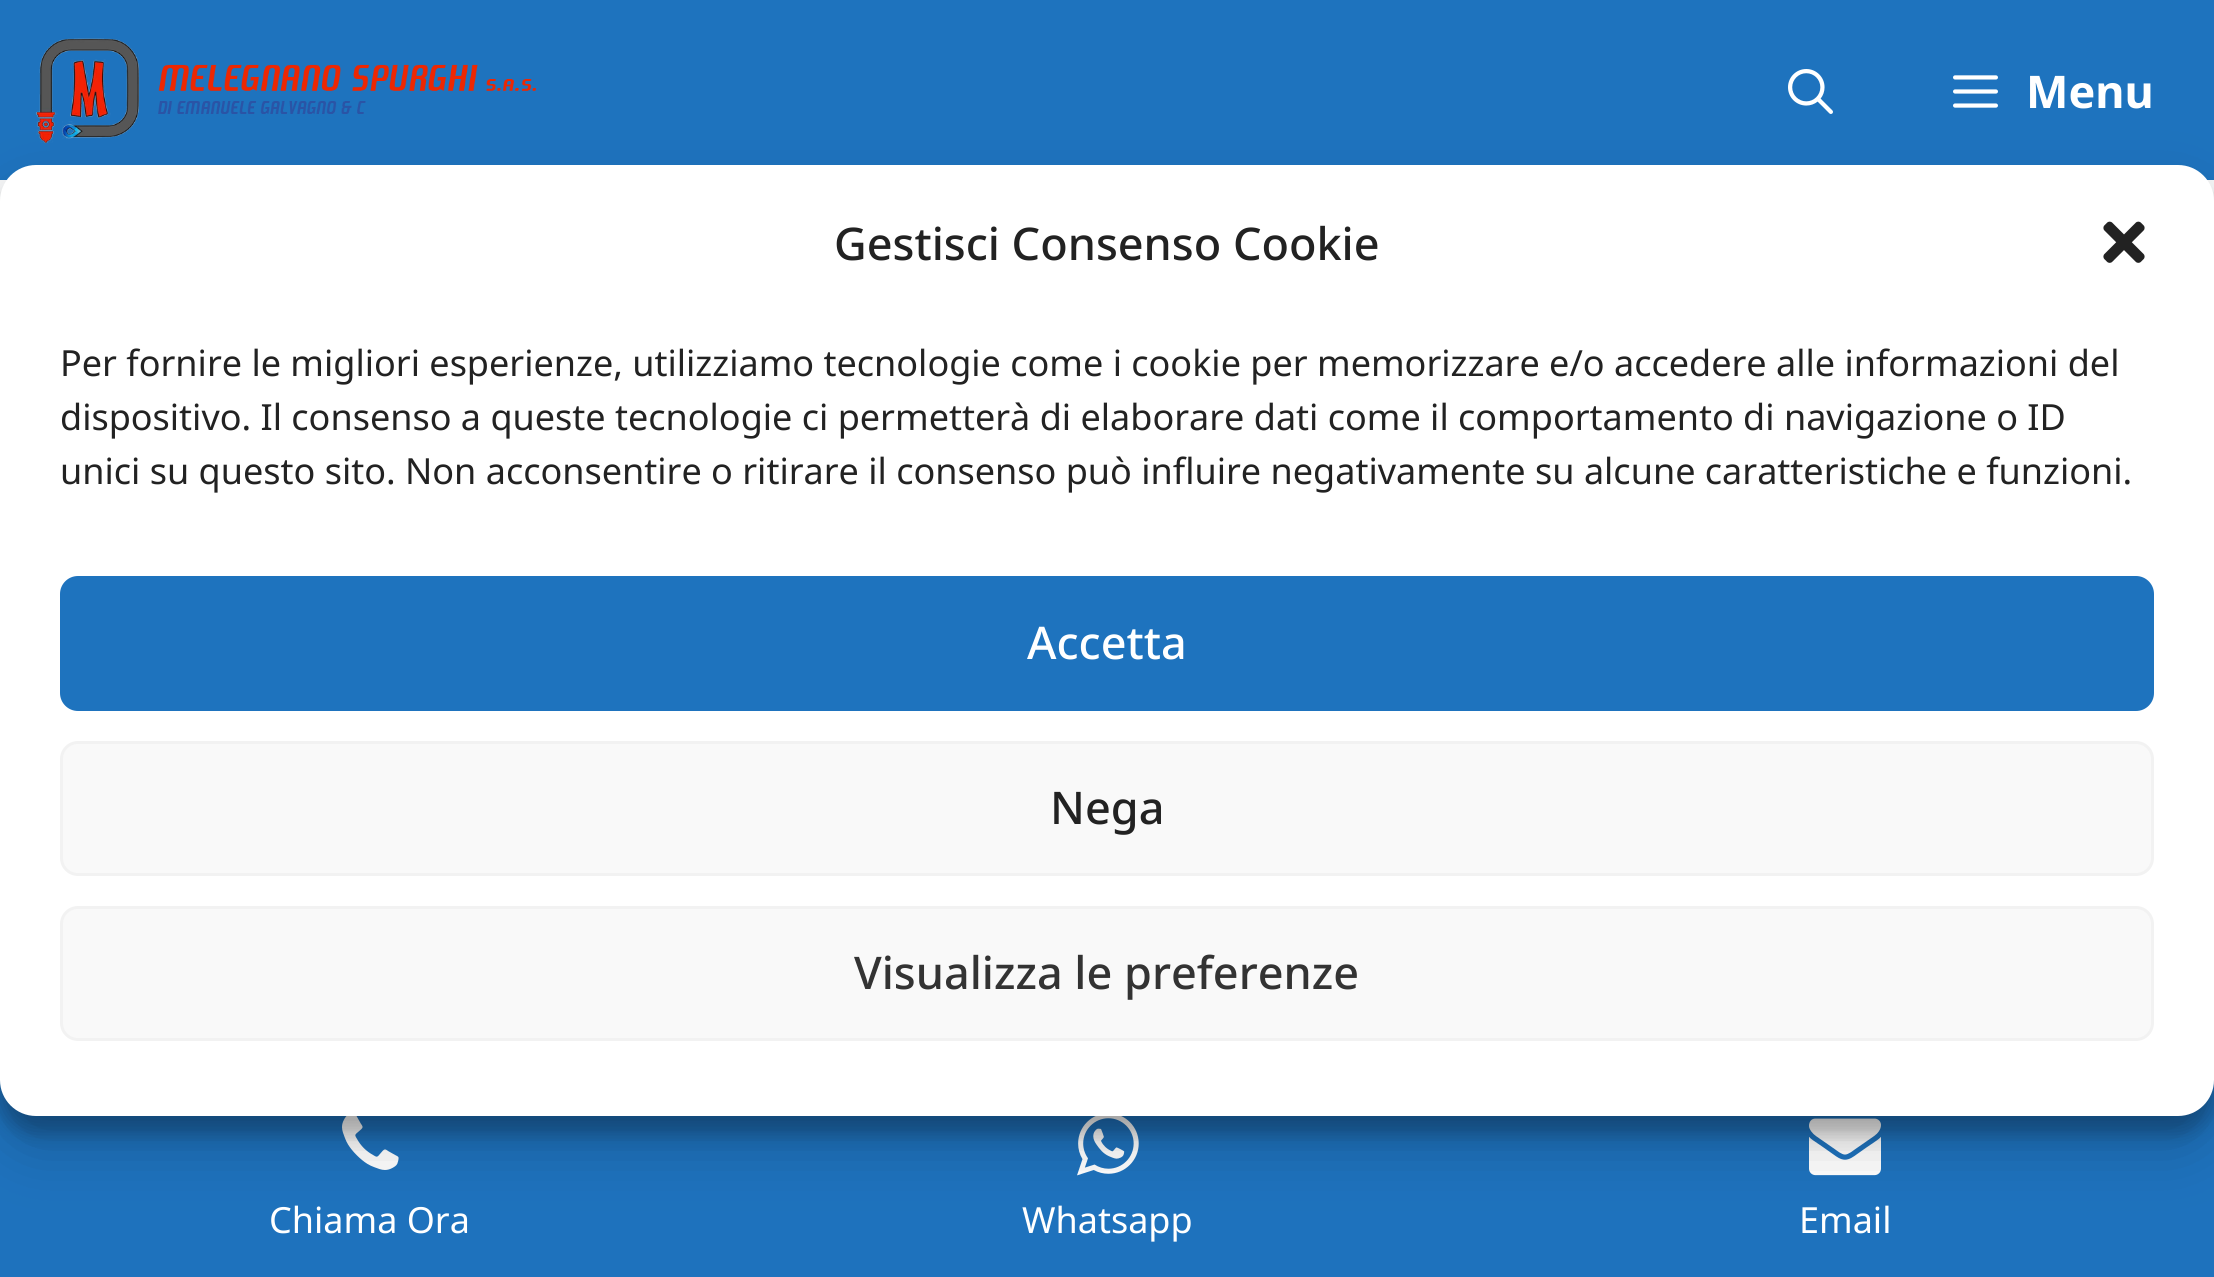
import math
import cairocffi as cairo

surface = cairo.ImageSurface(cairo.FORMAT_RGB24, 2214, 1277)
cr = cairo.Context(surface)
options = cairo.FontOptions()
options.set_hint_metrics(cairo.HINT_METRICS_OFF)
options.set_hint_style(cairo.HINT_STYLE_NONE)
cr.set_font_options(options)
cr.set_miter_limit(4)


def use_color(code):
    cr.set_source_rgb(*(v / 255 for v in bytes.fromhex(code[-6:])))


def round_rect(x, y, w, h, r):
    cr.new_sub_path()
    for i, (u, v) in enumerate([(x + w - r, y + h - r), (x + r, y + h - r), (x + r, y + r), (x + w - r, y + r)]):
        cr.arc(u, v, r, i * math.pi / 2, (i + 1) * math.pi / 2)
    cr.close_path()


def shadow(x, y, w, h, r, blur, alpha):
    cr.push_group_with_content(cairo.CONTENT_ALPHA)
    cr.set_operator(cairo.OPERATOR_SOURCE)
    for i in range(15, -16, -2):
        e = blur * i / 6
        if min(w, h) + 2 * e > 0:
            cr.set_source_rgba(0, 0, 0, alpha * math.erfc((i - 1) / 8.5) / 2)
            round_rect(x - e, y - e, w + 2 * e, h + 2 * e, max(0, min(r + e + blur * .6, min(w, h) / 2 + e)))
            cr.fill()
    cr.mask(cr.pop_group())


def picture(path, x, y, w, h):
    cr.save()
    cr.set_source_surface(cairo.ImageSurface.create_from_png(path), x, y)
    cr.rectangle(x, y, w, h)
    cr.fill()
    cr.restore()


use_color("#f7f8f9")
cr.paint()
use_color("#1e73be")
cr.rectangle(0, 0, 2214, 180)
cr.fill()
picture("img1.png", 36, 38, 501, 106)
picture("img2.png", 1788, 69, 45, 45)
picture("img3.png", 1953, 75, 45, 33)
cr.select_font_face("Noto Sans", cairo.FONT_SLANT_NORMAL, cairo.FONT_WEIGHT_BOLD)
cr.set_font_size(45)
use_color("#ffffff")
cr.move_to(2026, 108)
cr.show_text("Menu")
use_color("#1e72bd")
cr.rectangle(0, 1080, 2214, 197)
cr.fill()
picture("img5.png", 342, 1116, 57, 54)
picture("img6.png", 1077, 1116, 62, 60)
picture("img7.png", 1809, 1118, 72, 58)
use_color("#000000")
shadow(0, 183, 2214, 951, 36, 9, 0.23)
shadow(0, 195, 2214, 951, 36, 30, 0.19)
use_color("#ffffff")
round_rect(0, 165, 2214, 951, 36)
cr.fill()
cr.select_font_face("Noto Sans Medium")
use_color("#222222")
cr.move_to(834, 260)
cr.show_text("Gestisci Consenso Cookie")
picture("img4.png", 2103, 221, 42, 42)
cr.select_font_face("Noto Sans")
cr.set_font_size(36)
cr.move_to(60, 376)
cr.show_text("Per fornire le migliori esperienze, utilizziamo tecnologie come i cookie per memorizzare e/o accedere alle informazioni del")
cr.move_to(60, 430)
cr.show_text("dispositivo. Il consenso a queste tecnologie ci permetterà di elaborare dati come il comportamento di navigazione o ID")
cr.move_to(60, 484)
cr.show_text("unici su questo sito. Non acconsentire o ritirare il consenso può influire negativamente su alcune caratteristiche e funzioni.")
use_color("#1e73be")
round_rect(61.5, 577.5, 2091, 132, 16.5)
cr.fill_preserve()
cr.set_line_width(3)
cr.stroke()
cr.select_font_face("Noto Sans Medium")
cr.set_font_size(45)
use_color("#ffffff")
cr.move_to(1027, 659)
cr.show_text("Accetta")
use_color("#f9f9f9")
round_rect(61.5, 742.5, 2091, 132, 16.5)
cr.fill_preserve()
use_color("#f2f2f2")
cr.stroke()
use_color("#222222")
cr.move_to(1050, 824)
cr.show_text("Nega")
use_color("#f9f9f9")
round_rect(61.5, 907.5, 2091, 132, 16.5)
cr.fill_preserve()
use_color("#f2f2f2")
cr.stroke()
use_color("#333333")
cr.move_to(854, 989)
cr.show_text("Visualizza le preferenze")
cr.select_font_face("Noto Sans")
cr.set_font_size(36)
use_color("#ffffff")
cr.move_to(269, 1233)
cr.show_text("Chiama Ora")
cr.move_to(1022, 1233)
cr.show_text("Whatsapp")
cr.move_to(1799, 1233)
cr.show_text("Email")
surface.write_to_png("result.png")
